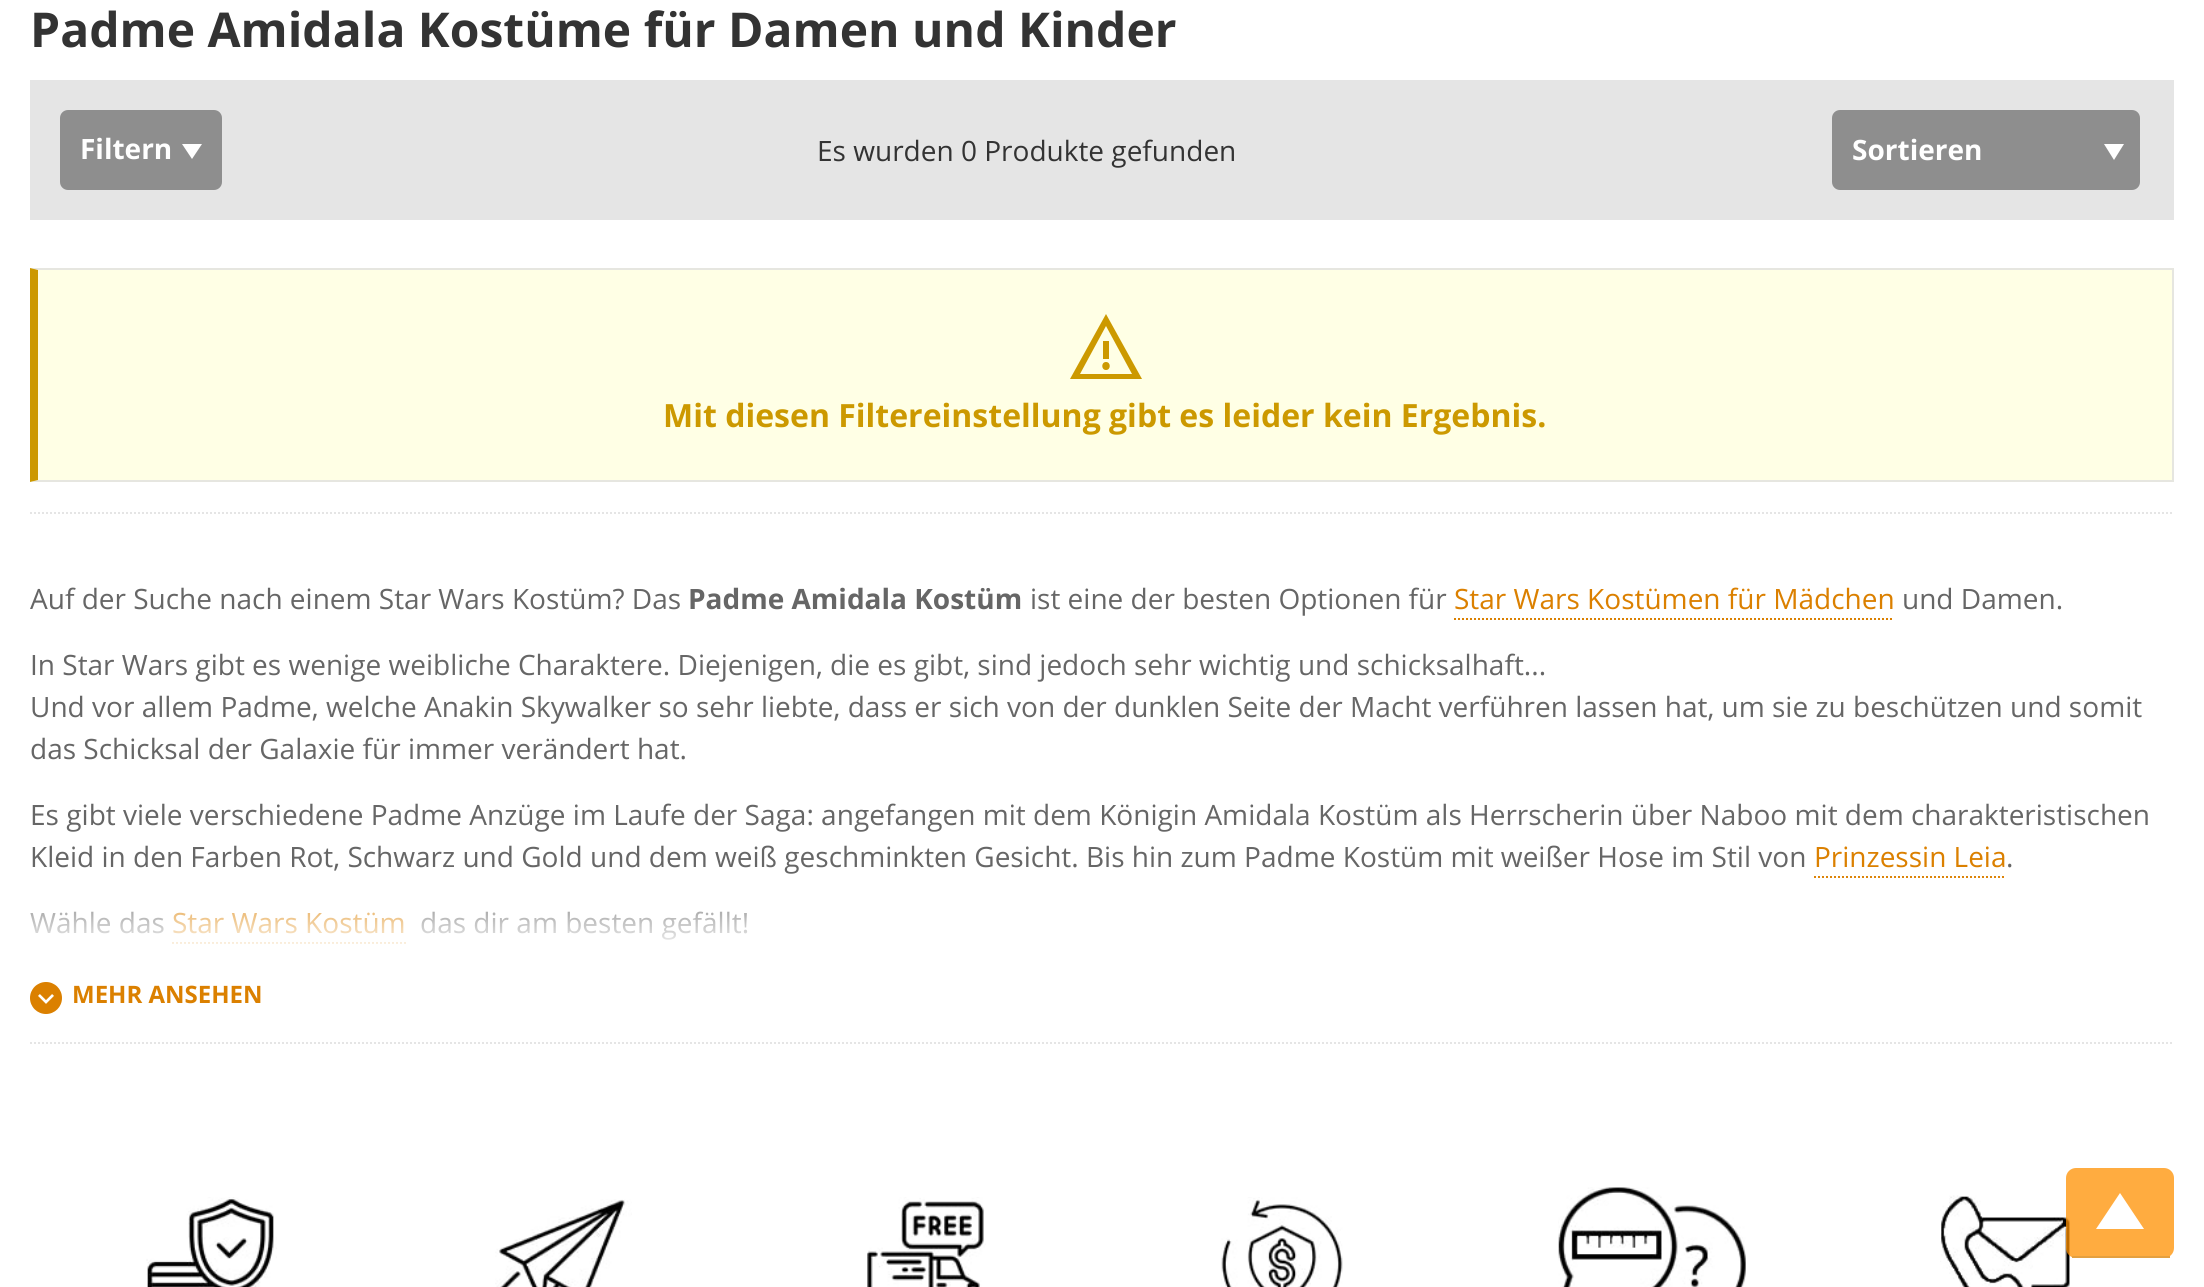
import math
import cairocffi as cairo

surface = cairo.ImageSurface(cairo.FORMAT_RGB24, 2204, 1287)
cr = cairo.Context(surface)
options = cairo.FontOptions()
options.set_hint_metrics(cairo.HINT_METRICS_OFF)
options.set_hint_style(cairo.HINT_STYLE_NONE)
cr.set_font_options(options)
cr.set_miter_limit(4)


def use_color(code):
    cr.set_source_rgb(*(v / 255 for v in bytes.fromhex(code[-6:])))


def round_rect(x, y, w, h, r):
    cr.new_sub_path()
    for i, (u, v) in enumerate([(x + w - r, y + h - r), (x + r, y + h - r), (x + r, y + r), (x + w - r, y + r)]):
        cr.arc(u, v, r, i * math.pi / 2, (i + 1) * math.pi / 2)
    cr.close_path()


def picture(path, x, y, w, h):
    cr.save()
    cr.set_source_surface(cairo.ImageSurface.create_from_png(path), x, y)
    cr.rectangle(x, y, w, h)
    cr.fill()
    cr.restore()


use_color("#ffffff")
cr.paint()
cr.select_font_face("Open Sans", cairo.FONT_SLANT_NORMAL, cairo.FONT_WEIGHT_BOLD)
cr.set_font_size(48)
use_color("#333333")
cr.move_to(30, 47)
cr.show_text("Padme Amidala Kostüme für Damen und Kinder")
use_color("#e5e5e5")
cr.rectangle(30, 80, 2144, 140)
cr.fill()
use_color("#8e8e8e")
round_rect(60, 110, 162, 80, 8)
cr.fill()
cr.set_font_size(28)
use_color("#ffffff")
cr.move_to(80, 159)
cr.show_text("Filtern")
cr.new_path()
cr.move_to(192, 159)
cr.line_to(182, 144)
cr.line_to(202, 144)
cr.close_path()
cr.fill()
cr.select_font_face("Open Sans")
use_color("#333333")
cr.move_to(817, 161)
cr.show_text("Es wurden 0 Produkte gefunden")
use_color("#8e8e8e")
round_rect(1834, 112, 304, 76, 6)
cr.fill_preserve()
cr.set_line_width(4)
cr.stroke()
cr.select_font_face("Open Sans", cairo.FONT_SLANT_NORMAL, cairo.FONT_WEIGHT_BOLD)
use_color("#ffffff")
cr.move_to(1852, 160)
cr.show_text("Sortieren")
cr.new_path()
cr.move_to(2104, 144)
cr.line_to(2124, 144)
cr.line_to(2114, 160)
cr.close_path()
cr.fill()
use_color("#ffffe5")
cr.rectangle(38, 270, 2134, 210)
cr.fill()
use_color("#e6e6e0")
cr.new_path()
cr.move_to(30, 268)
cr.line_to(2174, 268)
cr.line_to(2172, 270)
cr.line_to(38, 270)
cr.close_path()
cr.fill()
cr.rectangle(2172, 268, 2, 214)
cr.fill()
cr.new_path()
cr.move_to(2174, 482)
cr.line_to(30, 482)
cr.line_to(38, 480)
cr.line_to(2172, 480)
cr.close_path()
cr.fill()
use_color("#cc9900")
cr.new_path()
cr.move_to(30, 482)
cr.line_to(30, 268)
cr.line_to(38, 270)
cr.line_to(38, 480)
cr.close_path()
cr.fill()
cr.new_path()
cr.move_to(1106, 326)
cr.line_to(1132, 374)
cr.line_to(1080, 374)
cr.close_path()
cr.move_to(1106, 314)
cr.line_to(1070, 379)
cr.line_to(1142, 379)
cr.close_path()
cr.move_to(1103, 341)
cr.line_to(1109, 341)
cr.line_to(1109, 359)
cr.line_to(1103, 359)
cr.close_path()
cr.move_to(1106, 370)
cr.curve_to(1101, 370, 1101, 362, 1106, 362)
cr.curve_to(1111, 362, 1111, 370, 1106, 370)
cr.close_path()
cr.fill()
cr.set_font_size(32)
cr.move_to(663, 427)
cr.show_text("Mit diesen Filtereinstellung gibt es leider kein Ergebnis.")
cr.new_path()
cr.move_to(30, 513)
cr.line_to(2174, 513)
use_color("#e5e5e5")
cr.set_line_width(2)
cr.set_dash([2, 2])
cr.stroke()
cr.select_font_face("Open Sans")
cr.set_font_size(28)
use_color("#666666")
cr.move_to(30, 609)
cr.show_text("Auf der Suche nach einem Star Wars Kostüm? Das")
cr.select_font_face("Open Sans", cairo.FONT_SLANT_NORMAL, cairo.FONT_WEIGHT_BOLD)
cr.move_to(688, 609)
cr.show_text("Padme Amidala Kostüm")
cr.select_font_face("Open Sans")
cr.move_to(1030, 609)
cr.show_text("ist eine der besten Optionen für")
use_color("#db8000")
cr.move_to(1454, 609)
cr.show_text("Star Wars Kostümen für Mädchen")
cr.new_path()
cr.move_to(1454, 619)
cr.line_to(1894, 619)
cr.stroke()
use_color("#666666")
cr.move_to(1902, 609)
cr.show_text("und Damen.")
cr.move_to(30, 675)
cr.show_text("In Star Wars gibt es wenige weibliche Charaktere. Diejenigen, die es gibt, sind jedoch sehr wichtig und schicksalhaft...")
cr.move_to(30, 717)
cr.show_text("Und vor allem Padme, welche Anakin Skywalker so sehr liebte, dass er sich von der dunklen Seite der Macht verführen lassen hat, um sie zu beschützen und somit")
cr.move_to(30, 759)
cr.show_text("das Schicksal der Galaxie für immer verändert hat.")
cr.move_to(30, 825)
cr.show_text("Es gibt viele verschiedene Padme Anzüge im Laufe der Saga: angefangen mit dem Königin Amidala Kostüm als Herrscherin über Naboo mit dem charakteristischen")
cr.move_to(30, 867)
cr.show_text("Kleid in den Farben Rot, Schwarz und Gold und dem weiß geschminkten Gesicht. Bis hin zum Padme Kostüm mit weißer Hose im Stil von")
use_color("#db8000")
cr.move_to(1814, 867)
cr.show_text("Prinzessin Leia")
cr.new_path()
cr.move_to(1814, 877)
cr.line_to(2006, 877)
cr.stroke()
use_color("#666666")
cr.move_to(2006, 867)
cr.show_text(".")
cr.move_to(30, 933)
cr.show_text("Wähle das")
use_color("#db8000")
cr.move_to(172, 933)
cr.show_text("Star Wars Kostüm")
cr.new_path()
cr.move_to(172, 943)
cr.line_to(406, 943)
cr.stroke()
use_color("#666666")
cr.move_to(420, 933)
cr.show_text("das dir am besten gefällt!")
gradient = cairo.LinearGradient(1102, 874, 1102, 954)
gradient.add_color_stop_rgba(0, 1, 1, 1, 0)
gradient.add_color_stop_rgba(1, 1, 1, 1, 1)
cr.set_source(gradient)
cr.rectangle(30, 876, 1974, 68)
cr.fill()
cr.new_path()
cr.move_to(30, 1043)
cr.line_to(2174, 1043)
use_color("#e5e5e5")
cr.stroke()
picture("img1.png", 30, 982, 32, 32)
cr.select_font_face("Open Sans", cairo.FONT_SLANT_NORMAL, cairo.FONT_WEIGHT_BOLD)
cr.set_font_size(24)
use_color("#db8000")
cr.move_to(72, 1003)
cr.show_text("MEHR ANSEHEN")
picture("img2.png", 146, 1197, 131, 90)
picture("img3.png", 495, 1199, 137, 88)
picture("img4.png", 867, 1197, 119, 90)
picture("img5.png", 1221, 1197, 122, 90)
picture("img6.png", 1558, 1187, 188, 100)
picture("img7.png", 1940, 1195, 130, 92)
cr.set_source_rgba(1, 0.565, 0, 0.75)
round_rect(2066, 1168, 108, 90, 10)
cr.fill()
use_color("#e4a040")
cr.rectangle(2072, 1256, 98, 2)
cr.fill()
use_color("#ffffff")
cr.new_path()
cr.move_to(2120, 1193)
cr.line_to(2144, 1229)
cr.line_to(2096, 1229)
cr.close_path()
cr.fill()
surface.write_to_png("result.png")
